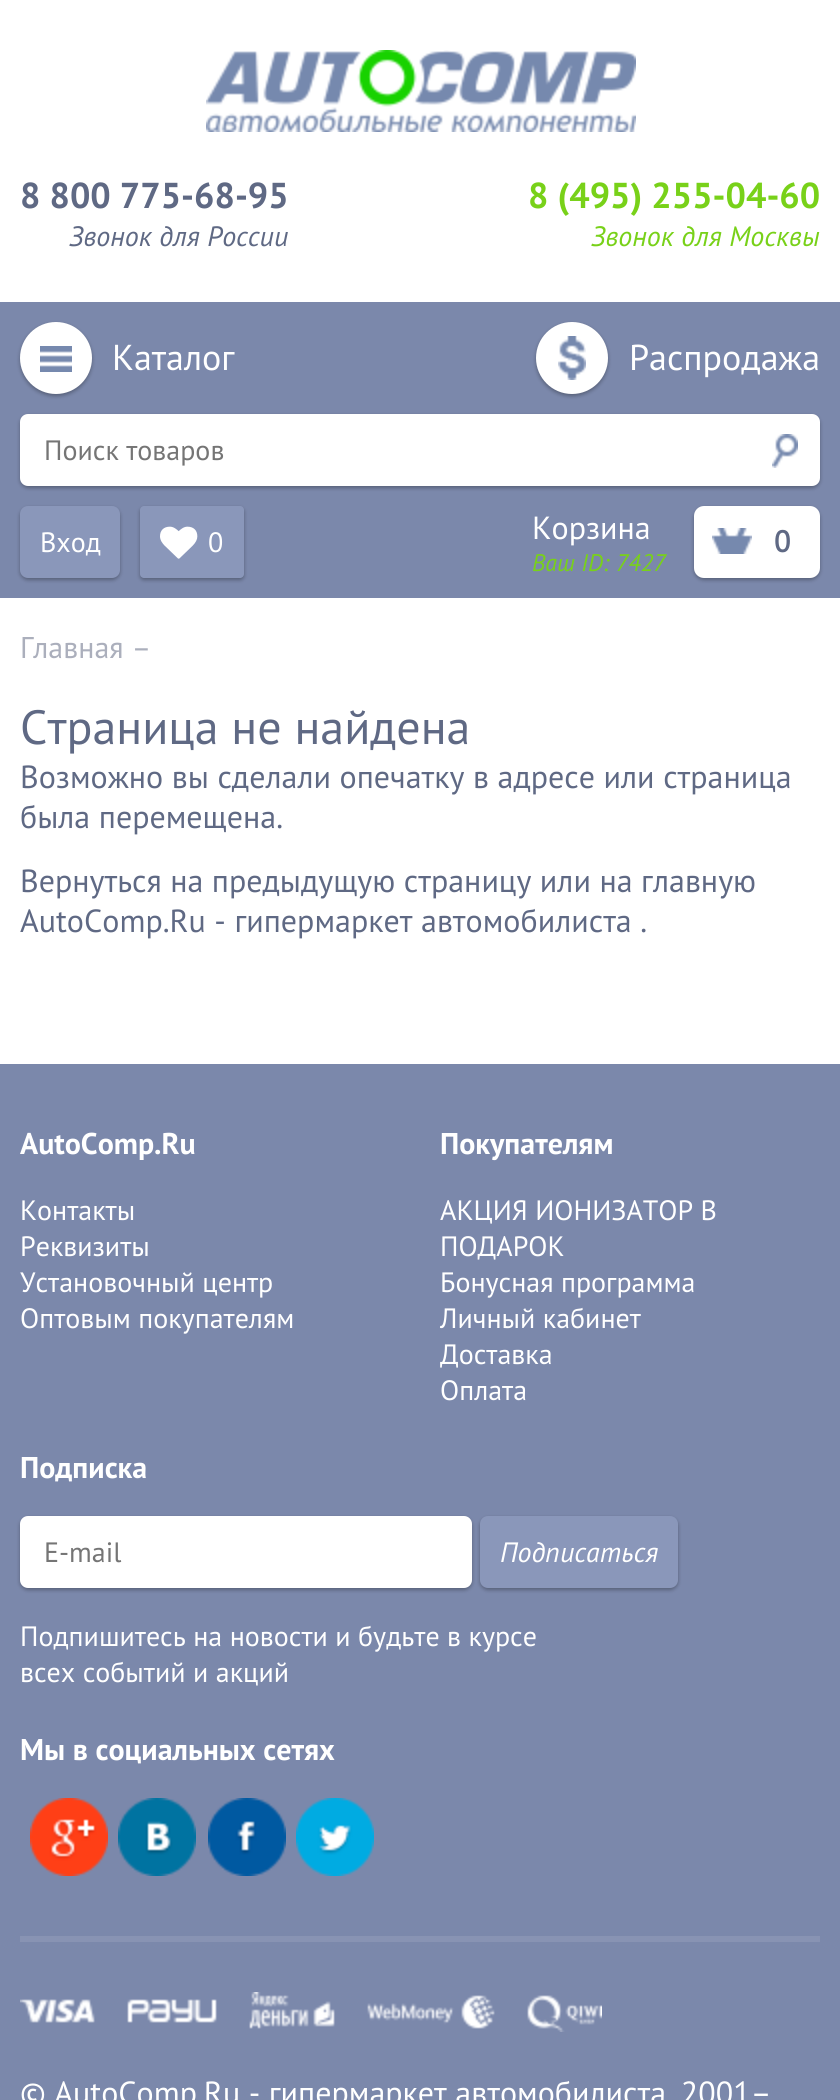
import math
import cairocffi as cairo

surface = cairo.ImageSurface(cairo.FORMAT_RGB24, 840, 2100)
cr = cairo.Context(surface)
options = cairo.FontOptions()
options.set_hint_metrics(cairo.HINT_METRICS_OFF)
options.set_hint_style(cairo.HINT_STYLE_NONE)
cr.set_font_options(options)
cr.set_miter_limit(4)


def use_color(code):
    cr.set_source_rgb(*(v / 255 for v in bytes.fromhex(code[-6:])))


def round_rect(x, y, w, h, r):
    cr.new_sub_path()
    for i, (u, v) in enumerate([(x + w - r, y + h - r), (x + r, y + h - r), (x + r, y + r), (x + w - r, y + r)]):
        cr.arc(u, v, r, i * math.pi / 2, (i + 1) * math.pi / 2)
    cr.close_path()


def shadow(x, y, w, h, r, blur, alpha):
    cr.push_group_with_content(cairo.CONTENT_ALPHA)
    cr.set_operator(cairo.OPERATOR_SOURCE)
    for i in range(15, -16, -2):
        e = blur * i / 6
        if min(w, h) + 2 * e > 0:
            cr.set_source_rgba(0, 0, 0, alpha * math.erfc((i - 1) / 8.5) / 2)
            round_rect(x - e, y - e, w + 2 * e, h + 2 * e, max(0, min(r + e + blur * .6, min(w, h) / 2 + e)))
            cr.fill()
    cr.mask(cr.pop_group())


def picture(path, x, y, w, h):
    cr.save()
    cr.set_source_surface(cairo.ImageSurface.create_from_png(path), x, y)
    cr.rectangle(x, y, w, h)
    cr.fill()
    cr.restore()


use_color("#ffffff")
cr.paint()
picture("img1.png", 206, 50, 430, 82)
cr.select_font_face("PT Sans", cairo.FONT_SLANT_NORMAL, cairo.FONT_WEIGHT_BOLD)
cr.set_font_size(36)
use_color("#5f6984")
cr.move_to(20, 208)
cr.show_text("8 800 775-68-95")
cr.select_font_face("PT Sans", cairo.FONT_SLANT_ITALIC)
cr.set_font_size(28)
cr.move_to(69, 246)
cr.show_text("Звонок для России")
cr.select_font_face("PT Sans", cairo.FONT_SLANT_NORMAL, cairo.FONT_WEIGHT_BOLD)
cr.set_font_size(36)
use_color("#78d119")
cr.move_to(528, 208)
cr.show_text("8 (495) 255-04-60")
cr.select_font_face("PT Sans", cairo.FONT_SLANT_ITALIC)
cr.set_font_size(28)
cr.move_to(591, 246)
cr.show_text("Звонок для Москвы")
use_color("#7b88ab")
cr.rectangle(0, 302, 840, 296)
cr.fill()
use_color("#000000")
shadow(20, 324, 72, 72, 36, 2, 0.3)
use_color("#ffffff")
cr.arc(56, 358, 36, 0, 2 * math.pi)
cr.fill()
picture("img2.png", 40, 346, 32, 26)
cr.select_font_face("PT Sans")
cr.set_font_size(36)
cr.move_to(112, 370)
cr.show_text("Каталог")
use_color("#000000")
shadow(536, 324, 72, 72, 36, 2, 0.3)
use_color("#ffffff")
cr.arc(572, 358, 36, 0, 2 * math.pi)
cr.fill()
picture("img3.png", 558, 336, 28, 44)
cr.move_to(629, 370)
cr.show_text("Распродажа")
use_color("#000000")
shadow(20, 416, 800, 72, 8, 2, 0.3)
use_color("#ffffff")
round_rect(20, 414, 800, 72, 8)
cr.fill()
cr.set_font_size(28)
use_color("#757575")
cr.move_to(44, 460)
cr.show_text("Поиск товаров")
picture("img4.png", 772, 434, 26, 34)
use_color("#000000")
shadow(20, 508, 100, 72, 8, 2, 0.3)
use_color("#8a97ba")
round_rect(20, 506, 100, 72, 8)
cr.fill()
use_color("#ffffff")
cr.move_to(40, 552)
cr.show_text("Вход")
use_color("#000000")
shadow(140, 508, 104, 72, 4, 2, 0.3)
use_color("#8a97ba")
round_rect(140, 506, 104, 72, 4)
cr.fill()
picture("img5.png", 160, 526, 38, 33)
use_color("#ffffff")
cr.move_to(208, 552)
cr.show_text("0")
cr.set_font_size(32)
cr.move_to(532, 539)
cr.show_text("Корзина")
cr.select_font_face("PT Sans", cairo.FONT_SLANT_ITALIC)
cr.set_font_size(24)
use_color("#78d119")
cr.move_to(532, 571)
cr.show_text("Ваш ID: 7427")
use_color("#000000")
shadow(694, 508, 126, 72, 10, 2, 0.3)
use_color("#ffffff")
round_rect(694, 506, 126, 72, 10)
cr.fill()
picture("img6.png", 712, 528, 40, 26)
cr.select_font_face("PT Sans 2", cairo.FONT_SLANT_NORMAL, cairo.FONT_WEIGHT_BOLD)
cr.set_font_size(30)
use_color("#5f6984")
cr.move_to(774, 552)
cr.show_text("0")
cr.select_font_face("PT Sans")
use_color("#abafbc")
cr.move_to(20, 658)
cr.show_text("Главная –")
cr.set_font_size(48)
use_color("#5f6984")
cr.move_to(20, 744)
cr.show_text("Cтраница не найдена")
cr.set_font_size(32)
cr.move_to(20, 788)
cr.show_text("Возможно вы сделали опечатку в адресе или страница")
cr.move_to(20, 828)
cr.show_text("была перемещена.")
cr.move_to(20, 892)
cr.show_text("Вернуться на предыдущую страницу или на главную")
cr.move_to(20, 932)
cr.show_text("AutoComp.Ru - гипермаркет автомобилиста .")
use_color("#7b88ab")
cr.rectangle(0, 1064, 840, 1036)
cr.fill()
cr.select_font_face("PT Sans", cairo.FONT_SLANT_NORMAL, cairo.FONT_WEIGHT_BOLD)
cr.set_font_size(30)
use_color("#ffffff")
cr.move_to(20, 1154)
cr.show_text("AutoComp.Ru")
cr.select_font_face("PT Sans")
cr.set_font_size(28)
cr.move_to(20, 1220)
cr.show_text("Контакты")
cr.move_to(20, 1256)
cr.show_text("Реквизиты")
cr.move_to(20, 1292)
cr.show_text("Установочный центр")
cr.move_to(20, 1328)
cr.show_text("Оптовым покупателям")
cr.select_font_face("PT Sans", cairo.FONT_SLANT_NORMAL, cairo.FONT_WEIGHT_BOLD)
cr.set_font_size(30)
cr.move_to(440, 1154)
cr.show_text("Покупателям")
cr.select_font_face("PT Sans")
cr.set_font_size(28)
cr.move_to(440, 1220)
cr.show_text("АКЦИЯ ИОНИЗАТОР В")
cr.move_to(440, 1256)
cr.show_text("ПОДАРОК")
cr.move_to(440, 1292)
cr.show_text("Бонусная программа")
cr.move_to(440, 1328)
cr.show_text("Личный кабинет")
cr.move_to(440, 1364)
cr.show_text("Доставка")
cr.move_to(440, 1400)
cr.show_text("Оплата")
cr.select_font_face("PT Sans", cairo.FONT_SLANT_NORMAL, cairo.FONT_WEIGHT_BOLD)
cr.set_font_size(30)
cr.move_to(20, 1478)
cr.show_text("Подписка")
use_color("#000000")
shadow(20, 1518, 452, 72, 8, 2, 0.3)
use_color("#ffffff")
round_rect(20, 1516, 452, 72, 8)
cr.fill()
cr.select_font_face("PT Sans")
cr.set_font_size(28)
use_color("#757575")
cr.move_to(44, 1562)
cr.show_text("E-mail")
use_color("#000000")
shadow(480, 1518, 198, 72, 8, 2, 0.3)
use_color("#8a97ba")
round_rect(480, 1516, 198, 72, 8)
cr.fill()
cr.select_font_face("PT Sans", cairo.FONT_SLANT_ITALIC)
use_color("#ffffff")
cr.move_to(500, 1562)
cr.show_text("Подписаться")
cr.select_font_face("PT Sans")
cr.move_to(20, 1646)
cr.show_text("Подпишитесь на новости и будьте в курсе")
cr.move_to(20, 1682)
cr.show_text("всех событий и акций")
cr.select_font_face("PT Sans", cairo.FONT_SLANT_NORMAL, cairo.FONT_WEIGHT_BOLD)
cr.set_font_size(30)
cr.move_to(20, 1760)
cr.show_text("Мы в социальных сетях")
picture("img7.png", 30, 1798, 78, 78)
picture("img8.png", 118, 1798, 78, 78)
picture("img9.png", 208, 1798, 78, 78)
picture("img10.png", 296, 1798, 78, 78)
use_color("#8893b3")
cr.rectangle(20, 1936, 800, 6)
cr.fill()
picture("img11.png", 20, 1992, 582, 40)
cr.select_font_face("PT Sans")
cr.set_font_size(32)
use_color("#ffffff")
cr.move_to(20, 2104)
cr.show_text("© AutoComp.Ru - гипермаркет автомобилиста, 2001–")
surface.write_to_png("result.png")
